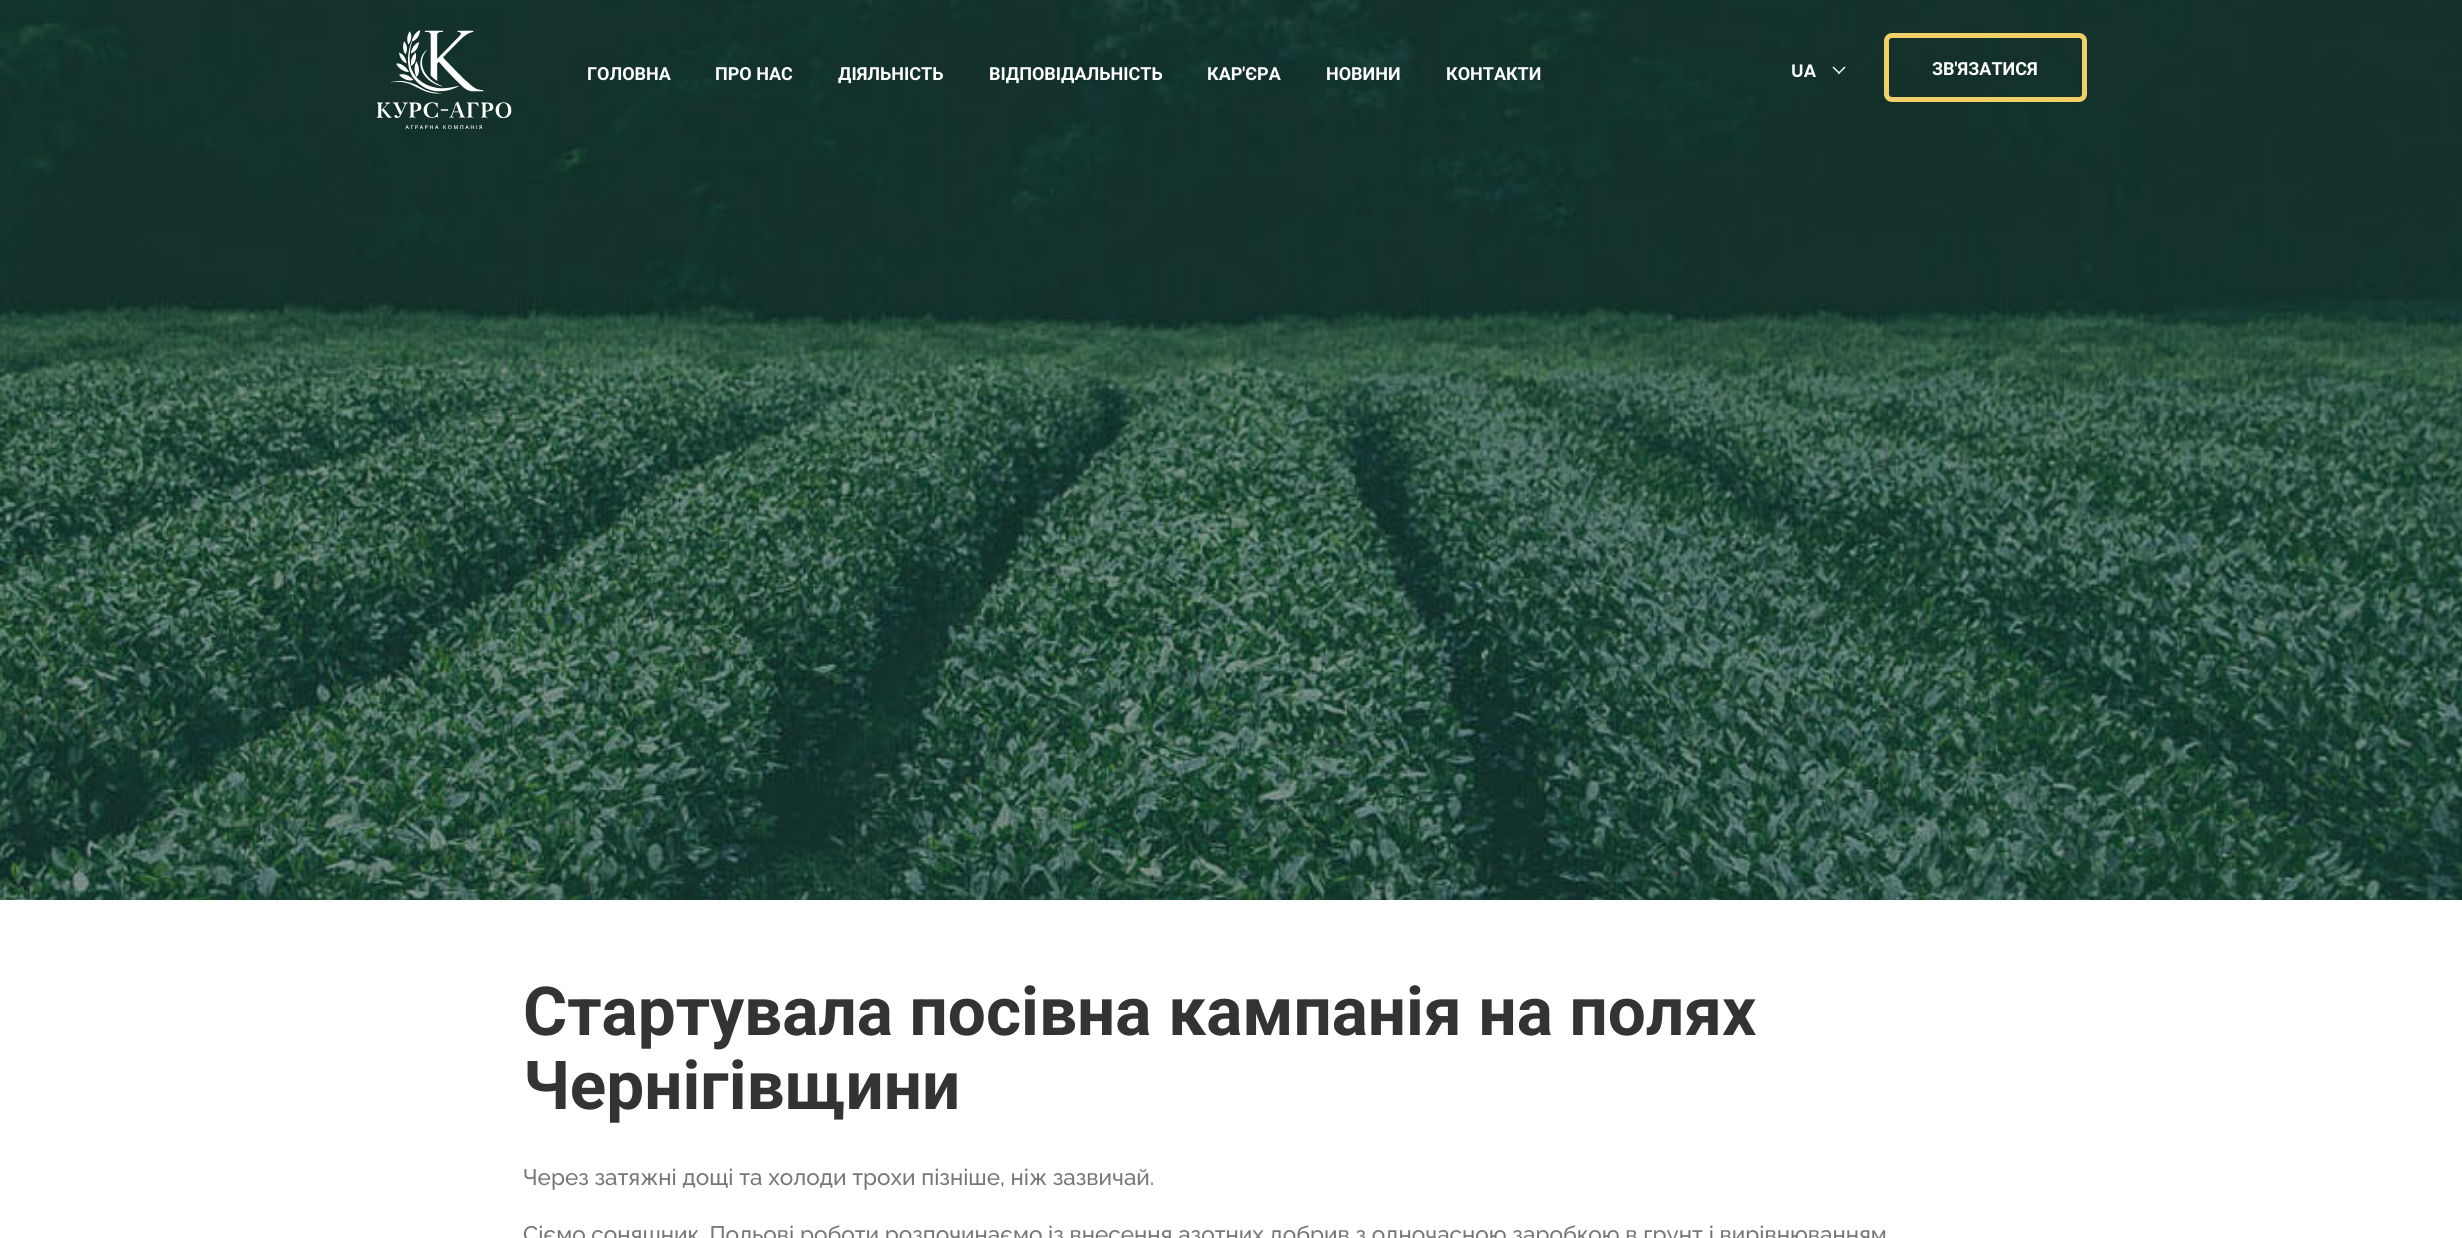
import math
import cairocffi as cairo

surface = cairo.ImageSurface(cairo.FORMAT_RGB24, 2462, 1238)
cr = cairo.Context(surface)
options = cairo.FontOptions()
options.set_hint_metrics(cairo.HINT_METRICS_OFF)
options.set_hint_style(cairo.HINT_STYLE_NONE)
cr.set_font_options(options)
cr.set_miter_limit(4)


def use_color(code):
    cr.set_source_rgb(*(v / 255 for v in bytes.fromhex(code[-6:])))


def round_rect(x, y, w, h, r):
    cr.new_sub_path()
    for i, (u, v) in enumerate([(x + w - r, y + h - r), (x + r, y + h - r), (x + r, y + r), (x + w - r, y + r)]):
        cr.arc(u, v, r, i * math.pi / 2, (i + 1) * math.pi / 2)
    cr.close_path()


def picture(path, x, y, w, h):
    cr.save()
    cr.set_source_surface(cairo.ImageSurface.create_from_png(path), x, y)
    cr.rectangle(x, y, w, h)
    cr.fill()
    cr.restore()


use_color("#ffffff")
cr.paint()
picture("img1.png", 0, 0, 2462, 900)
picture("img2.png", 377, 30, 135, 99)
cr.select_font_face("Roboto", cairo.FONT_SLANT_NORMAL, cairo.FONT_WEIGHT_BOLD)
cr.set_font_size(18)
use_color("#ffffff")
cr.move_to(587, 80)
cr.show_text("ГОЛОВНА")
cr.move_to(715, 80)
cr.show_text("ПРО НАС")
cr.move_to(838, 80)
cr.show_text("ДІЯЛЬНІСТЬ")
cr.move_to(989, 80)
cr.show_text("ВІДПОВІДАЛЬНІСТЬ")
cr.move_to(1207, 80)
cr.show_text("КАР'ЄРА")
cr.move_to(1326, 80)
cr.show_text("НОВИНИ")
cr.move_to(1446, 80)
cr.show_text("КОНТАКТИ")
round_rect(1886.5, 35.5, 198, 64, 5.5)
use_color("#f1cf69")
cr.set_line_width(5)
cr.stroke()
use_color("#ffffff")
cr.move_to(1932, 75)
cr.show_text("ЗВ'ЯЗАТИСЯ")
cr.select_font_face("Poppins SemiBold")
cr.move_to(1791, 77)
cr.show_text("UA")
cr.new_path()
cr.move_to(1838, 73)
cr.line_to(1844.5, 66.5)
cr.line_to(1845.5, 67.5)
cr.line_to(1839, 74)
cr.close_path()
cr.fill()
cr.new_path()
cr.move_to(1832.5, 67.5)
cr.line_to(1833.5, 66.5)
cr.line_to(1840, 73)
cr.line_to(1839, 74)
cr.close_path()
cr.fill()
cr.select_font_face("Roboto", cairo.FONT_SLANT_NORMAL, cairo.FONT_WEIGHT_BOLD)
cr.set_font_size(67.5)
use_color("#333333")
cr.move_to(523, 1035)
cr.show_text("Стартувала посівна кампанія на полях")
cr.move_to(523, 1109)
cr.show_text("Чернігівщини")
cr.select_font_face("Raleway Medium")
cr.set_font_size(22.5)
use_color("#777777")
cr.move_to(523, 1185)
cr.show_text("Через затяжні дощі та холоди трохи пізніше, ніж зазвичай.")
cr.move_to(523, 1242)
cr.show_text("Сіємо соняшник. Польові роботи розпочинаємо із внесення азотних добрив з одночасною заробкою в грунт і вирівнюванням")
surface.write_to_png("result.png")
